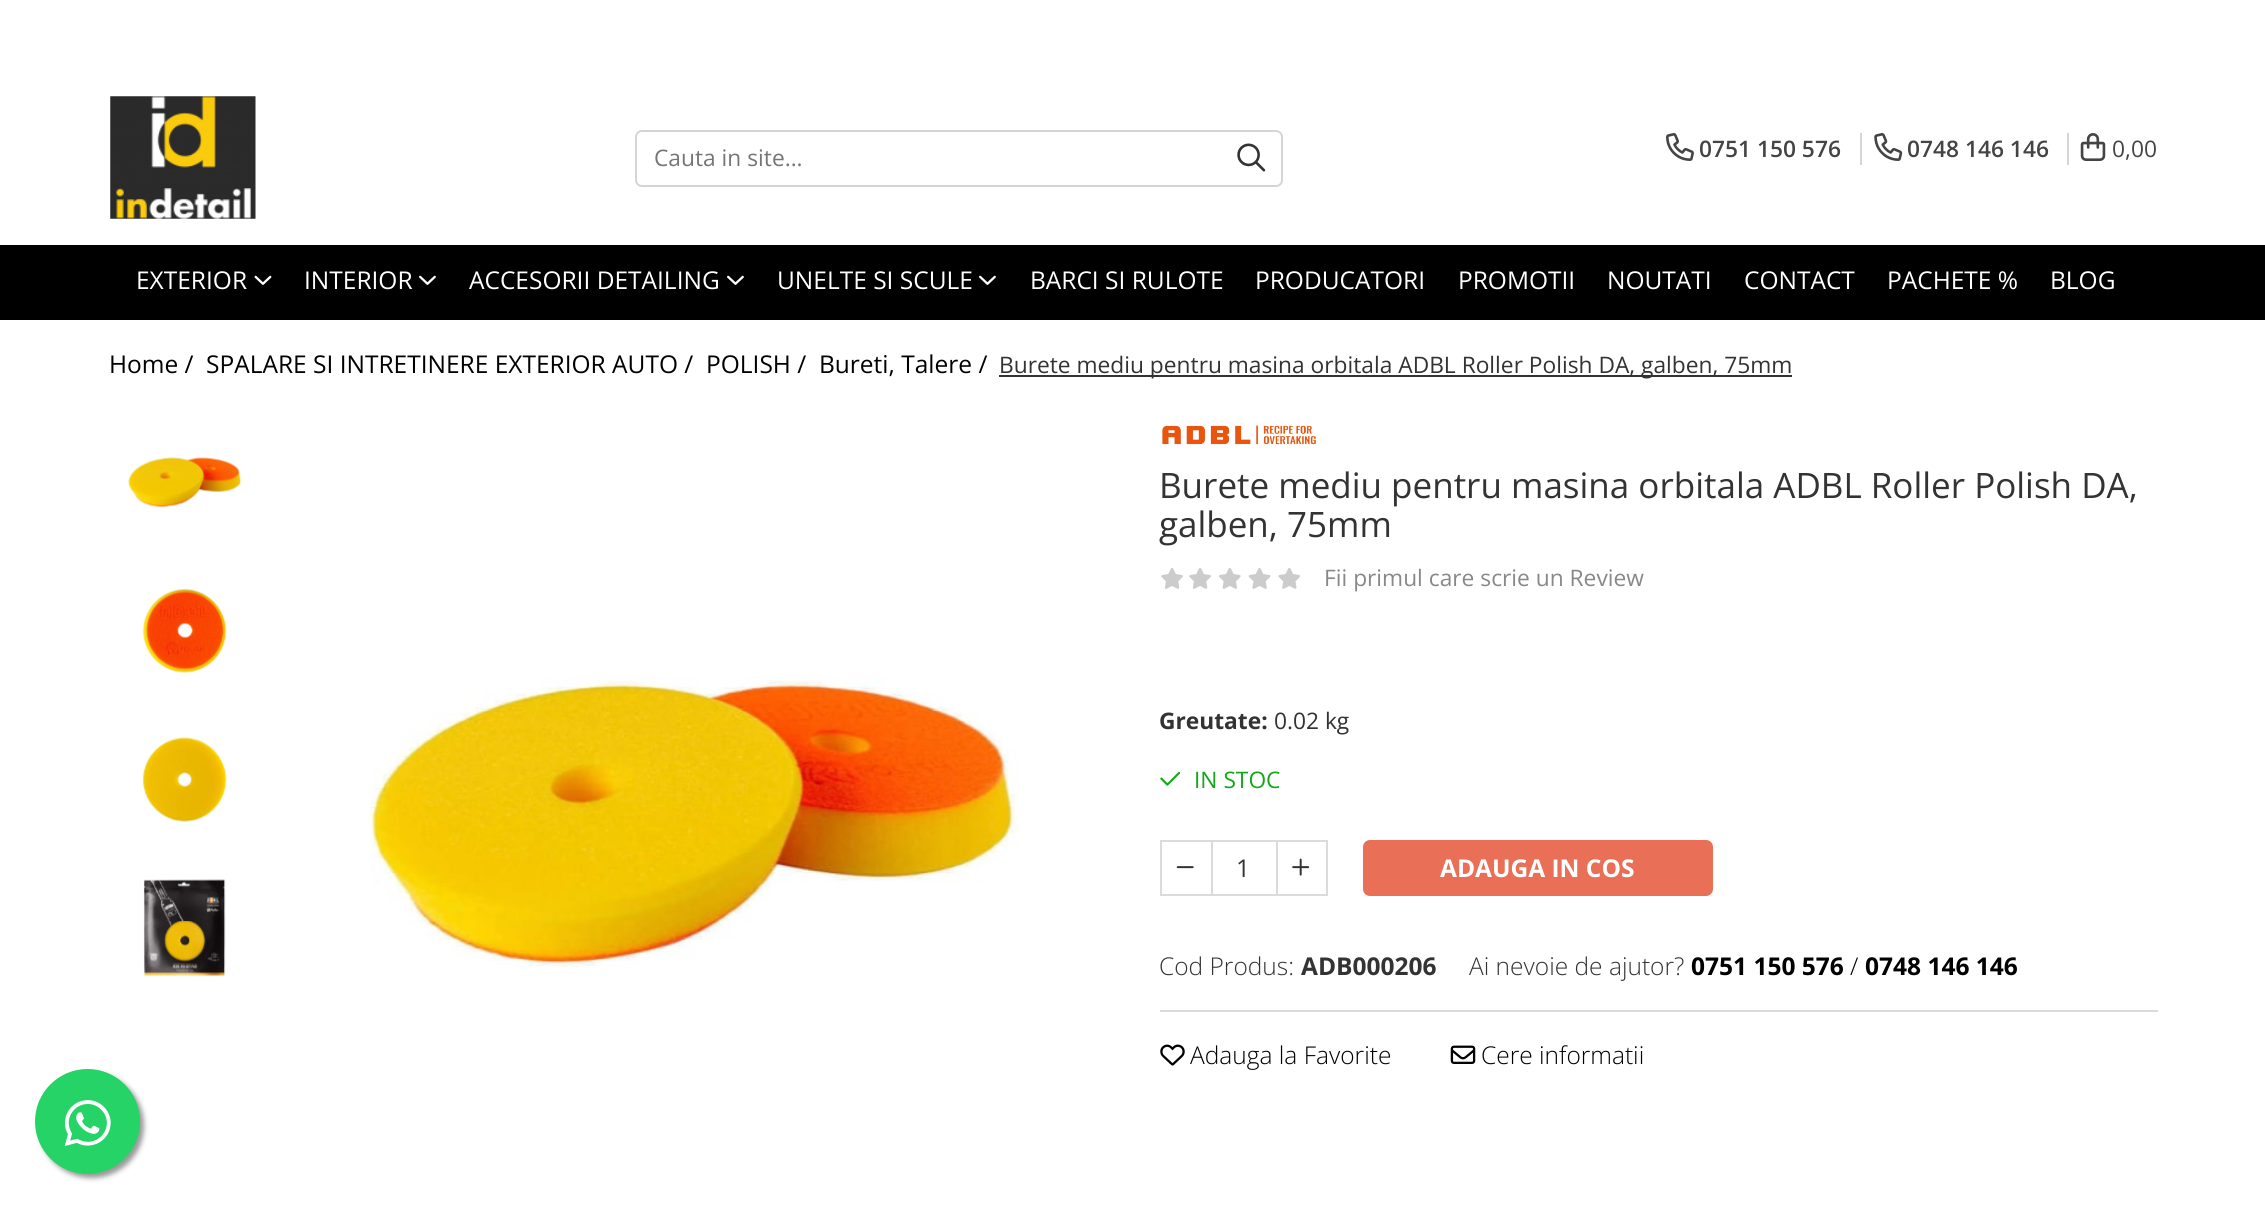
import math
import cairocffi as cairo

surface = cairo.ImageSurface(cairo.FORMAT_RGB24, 2265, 1209)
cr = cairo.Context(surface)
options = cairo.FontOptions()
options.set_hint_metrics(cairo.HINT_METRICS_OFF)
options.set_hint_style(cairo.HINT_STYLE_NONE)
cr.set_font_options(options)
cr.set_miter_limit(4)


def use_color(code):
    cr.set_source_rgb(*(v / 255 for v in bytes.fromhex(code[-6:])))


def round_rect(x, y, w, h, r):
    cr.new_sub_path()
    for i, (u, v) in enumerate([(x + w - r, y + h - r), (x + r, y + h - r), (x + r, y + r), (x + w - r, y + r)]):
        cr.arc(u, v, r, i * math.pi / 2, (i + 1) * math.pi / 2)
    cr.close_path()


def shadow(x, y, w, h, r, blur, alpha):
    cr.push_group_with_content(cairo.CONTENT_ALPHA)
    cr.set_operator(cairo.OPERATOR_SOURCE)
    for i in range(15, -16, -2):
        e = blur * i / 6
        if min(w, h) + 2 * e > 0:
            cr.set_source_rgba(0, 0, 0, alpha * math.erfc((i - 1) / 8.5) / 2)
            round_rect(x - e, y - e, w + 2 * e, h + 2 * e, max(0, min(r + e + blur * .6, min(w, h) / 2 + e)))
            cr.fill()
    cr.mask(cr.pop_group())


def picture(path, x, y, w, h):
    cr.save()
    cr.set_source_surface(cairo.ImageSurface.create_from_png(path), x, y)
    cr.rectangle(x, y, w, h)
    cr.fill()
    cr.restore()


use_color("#ffffff")
cr.paint()
picture("img1.png", 110, 96, 146, 123)
round_rect(636, 131, 646, 55, 6)
use_color("#d5d5d5")
cr.stroke()
cr.select_font_face("Open Sans")
cr.set_font_size(22.75)
use_color("#757575")
cr.move_to(654, 166)
cr.show_text("Cauta in site...")
picture("img2.png", 1237, 143, 29, 29)
picture("img3.png", 1666, 133, 28, 28)
cr.select_font_face("Open Sans SemiBold")
use_color("#444444")
cr.move_to(1699, 157)
cr.show_text("0751 150 576")
use_color("#d5d5d5")
cr.rectangle(1860, 133, 2, 32)
cr.fill()
picture("img4.png", 1874, 133, 29, 28)
use_color("#444444")
cr.move_to(1907, 157)
cr.show_text("0748 146 146")
use_color("#d5d5d5")
cr.rectangle(2067, 133, 2, 32)
cr.fill()
picture("img5.png", 2080, 133, 26, 28)
cr.select_font_face("Open Sans")
use_color("#444444")
cr.move_to(2112, 157)
cr.show_text("0,00")
use_color("#000000")
cr.rectangle(0, 245, 2265, 75)
cr.fill()
cr.set_font_size(24.5)
use_color("#ffffff")
cr.move_to(136, 289)
cr.show_text("EXTERIOR")
picture("img6.png", 254, 275, 18, 10)
cr.move_to(304, 289)
cr.show_text("INTERIOR")
picture("img7.png", 419, 275, 17, 10)
cr.move_to(469, 289)
cr.show_text("ACCESORII DETAILING")
picture("img7.png", 727, 275, 17, 10)
cr.move_to(777, 289)
cr.show_text("UNELTE SI SCULE")
picture("img7.png", 979, 275, 17, 10)
cr.move_to(1030, 289)
cr.show_text("BARCI SI RULOTE")
cr.move_to(1255, 289)
cr.show_text("PRODUCATORI")
cr.move_to(1458, 289)
cr.show_text("PROMOTII")
cr.move_to(1607, 289)
cr.show_text("NOUTATI")
cr.move_to(1744, 289)
cr.show_text("CONTACT")
cr.move_to(1887, 289)
cr.show_text("PACHETE %")
cr.move_to(2050, 289)
cr.show_text("BLOG")
use_color("#000000")
cr.move_to(109, 373)
cr.show_text("Home /")
cr.move_to(206, 373)
cr.show_text("SPALARE SI INTRETINERE EXTERIOR AUTO /")
cr.move_to(706, 373)
cr.show_text("POLISH /")
cr.move_to(819, 373)
cr.show_text("Bureti, Talere /")
use_color("#333333")
cr.rectangle(999, 375, 793, 2)
cr.fill()
cr.set_font_size(22.75)
cr.move_to(999, 373)
cr.show_text("Burete mediu pentru masina orbitala ADBL Roller Polish DA, galben, 75mm")
picture("img8.png", 128, 457, 114, 51)
picture("img9.png", 142, 588, 85, 85)
picture("img10.png", 142, 737, 85, 85)
picture("img11.png", 143, 879, 83, 98)
picture("img12.png", 370, 676, 649, 292)
picture("img13.png", 1162, 425, 154, 20)
cr.set_font_size(35)
cr.move_to(1159, 498)
cr.show_text("Burete mediu pentru masina orbitala ADBL Roller Polish DA,")
cr.move_to(1159, 537)
cr.show_text("galben, 75mm")
picture("img14.png", 1161, 568, 22, 21)
picture("img14.png", 1189, 568, 22, 21)
picture("img15.png", 1219, 568, 22, 21)
picture("img16.png", 1248, 568, 23, 21)
picture("img17.png", 1278, 568, 22, 21)
cr.set_font_size(22.75)
use_color("#888888")
cr.move_to(1324, 586)
cr.show_text("Fii primul care scrie un Review")
cr.select_font_face("Open Sans", cairo.FONT_SLANT_NORMAL, cairo.FONT_WEIGHT_BOLD)
use_color("#333333")
cr.move_to(1159, 729)
cr.show_text("Greutate:")
cr.select_font_face("Open Sans")
cr.move_to(1274, 729)
cr.show_text("0.02 kg")
picture("img18.png", 1160, 771, 21, 15)
use_color("#11a717")
cr.move_to(1194, 788)
cr.show_text("IN STOC")
cr.rectangle(1161, 841, 51, 54)
use_color("#dbdbdb")
cr.stroke()
picture("img19.png", 1176, 866, 18, 3)
cr.rectangle(1213, 840, 63, 2)
cr.fill()
cr.rectangle(1213, 894, 63, 2)
cr.fill()
cr.set_font_size(24.5)
use_color("#333333")
cr.move_to(1236, 877)
cr.show_text("1")
cr.rectangle(1277, 841, 50, 54)
use_color("#dbdbdb")
cr.stroke()
picture("img20.png", 1292, 858, 18, 18)
use_color("#e96f56")
round_rect(1363, 840, 350, 56, 7)
cr.fill()
cr.select_font_face("Open Sans", cairo.FONT_SLANT_NORMAL, cairo.FONT_WEIGHT_BOLD)
use_color("#ffffff")
cr.move_to(1440, 877)
cr.show_text("ADAUGA IN COS")
cr.select_font_face("Open Sans Light")
use_color("#333333")
cr.move_to(1159, 975)
cr.show_text("Cod Produs:")
cr.select_font_face("Open Sans", cairo.FONT_SLANT_NORMAL, cairo.FONT_WEIGHT_BOLD)
cr.move_to(1301, 975)
cr.show_text("ADB000206")
cr.select_font_face("Open Sans Light")
cr.move_to(1469, 975)
cr.show_text("Ai nevoie de ajutor?")
cr.select_font_face("Open Sans", cairo.FONT_SLANT_NORMAL, cairo.FONT_WEIGHT_BOLD)
use_color("#000000")
cr.move_to(1691, 975)
cr.show_text("0751 150 576")
cr.select_font_face("Open Sans Light")
cr.move_to(1850, 975)
cr.show_text("/")
cr.select_font_face("Open Sans", cairo.FONT_SLANT_NORMAL, cairo.FONT_WEIGHT_BOLD)
cr.move_to(1865, 975)
cr.show_text("0748 146 146")
use_color("#dbdbdb")
cr.rectangle(1160, 1010, 998, 2)
cr.fill()
picture("img21.png", 1160, 1044, 25, 22)
cr.select_font_face("Open Sans Light")
use_color("#000000")
cr.move_to(1190, 1064)
cr.show_text("Adauga la Favorite")
picture("img22.png", 1450, 1045, 26, 19)
cr.move_to(1481, 1064)
cr.show_text("Cere informatii")
use_color("#999999")
shadow(39, 1073, 105, 105, 52.5, 2.5, 1)
use_color("#25d366")
cr.arc(87.5, 1121.5, 52.5, 0, 2 * math.pi)
cr.fill()
picture("img23.png", 64, 1100, 47, 46)
surface.write_to_png("result.png")
